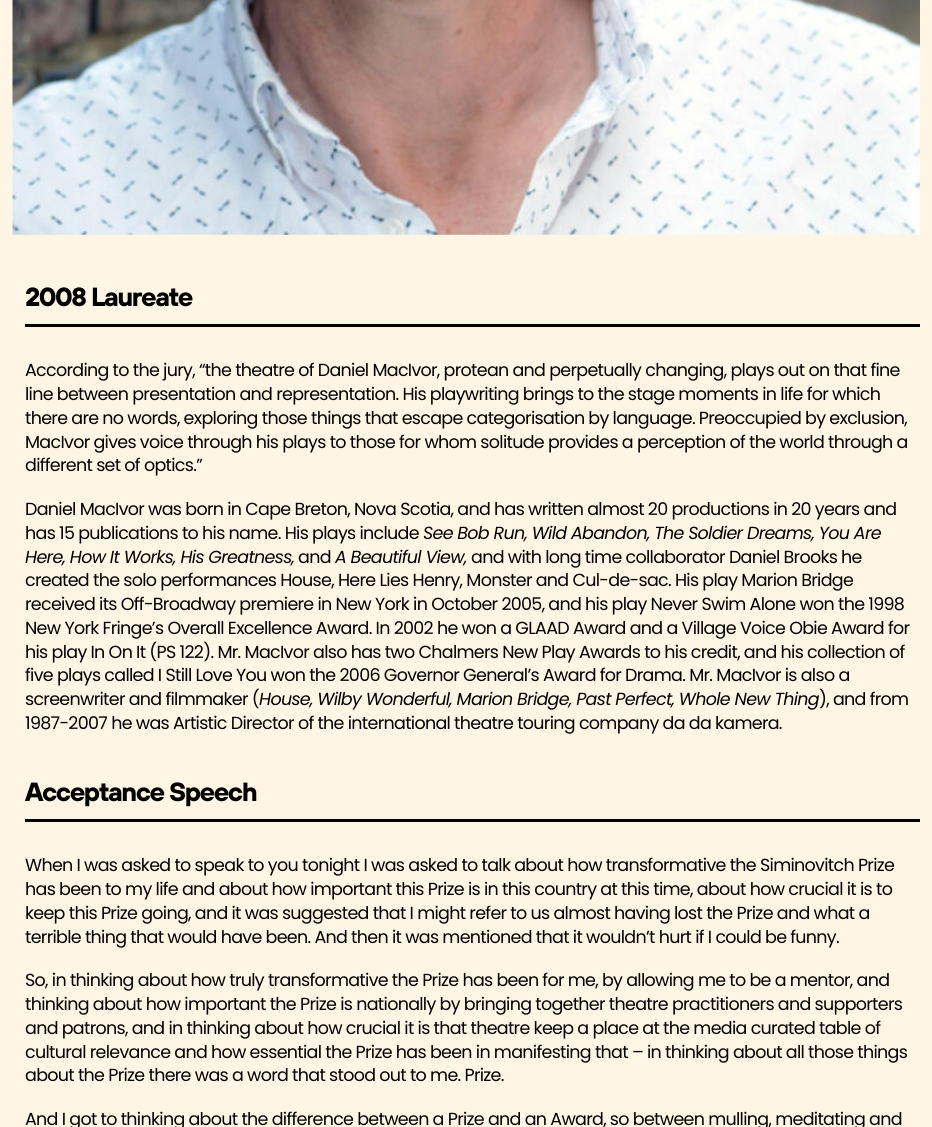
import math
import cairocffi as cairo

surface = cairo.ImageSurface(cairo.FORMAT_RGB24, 932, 1127)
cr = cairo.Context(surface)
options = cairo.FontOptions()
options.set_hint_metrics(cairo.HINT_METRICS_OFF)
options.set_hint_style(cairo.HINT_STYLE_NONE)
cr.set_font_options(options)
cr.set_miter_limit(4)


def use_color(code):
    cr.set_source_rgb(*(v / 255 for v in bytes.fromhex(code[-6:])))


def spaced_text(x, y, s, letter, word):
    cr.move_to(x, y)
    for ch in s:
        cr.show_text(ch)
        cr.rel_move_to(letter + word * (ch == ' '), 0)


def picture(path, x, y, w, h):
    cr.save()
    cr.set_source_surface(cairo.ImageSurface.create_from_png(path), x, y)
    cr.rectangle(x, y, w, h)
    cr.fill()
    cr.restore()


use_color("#fff5e4")
cr.paint()
picture("img1.png", 12, 0, 908, 235)
cr.select_font_face("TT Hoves", cairo.FONT_SLANT_NORMAL, cairo.FONT_WEIGHT_BOLD)
cr.set_font_size(26.25)
use_color("#000000")
spaced_text(25, 306, "2008 Laureate", -1.5, 0)
cr.rectangle(25, 324, 895, 3)
cr.fill()
cr.select_font_face("Poppins")
cr.set_font_size(17.5)
spaced_text(25, 376, "According to the jury, “the theatre of Daniel MacIvor, protean and perpetually changing, plays out on that fine", -0.7, 0)
spaced_text(25, 400, "line between presentation and representation. His playwriting brings to the stage moments in life for which", -0.7, 0)
spaced_text(25, 424, "there are no words, exploring those things that escape categorisation by language. Preoccupied by exclusion,", -0.7, 0)
spaced_text(25, 448, "MacIvor gives voice through his plays to those for whom solitude provides a perception of the world through a", -0.7, 0)
spaced_text(25, 471, "different set of optics.”", -0.7, 0)
spaced_text(25, 515, "Daniel MacIvor was born in Cape Breton, Nova Scotia, and has written almost 20 productions in 20 years and", -0.7, 0)
spaced_text(25, 539, "has 15 publications to his name. His plays include", -0.7, 0)
cr.select_font_face("Poppins", cairo.FONT_SLANT_ITALIC)
spaced_text(423, 539, "See Bob Run, Wild Abandon, The Soldier Dreams, You Are", -0.7, 0)
spaced_text(25, 563, "Here, How It Works, His Greatness,", -0.7, 0)
cr.select_font_face("Poppins")
spaced_text(298, 563, "and", -0.7, 0)
cr.select_font_face("Poppins", cairo.FONT_SLANT_ITALIC)
spaced_text(335, 563, "A Beautiful View,", -0.7, 0)
cr.select_font_face("Poppins")
spaced_text(471, 563, "and with long time collaborator Daniel Brooks he", -0.7, 0)
spaced_text(25, 586, "created the solo performances House, Here Lies Henry, Monster and Cul-de-sac. His play Marion Bridge", -0.7, 0)
spaced_text(25, 610, "received its Off-Broadway premiere in New York in October 2005, and his play Never Swim Alone won the 1998", -0.7, 0)
spaced_text(25, 634, "New York Fringe’s Overall Excellence Award. In 2002 he won a GLAAD Award and a Village Voice Obie Award for", -0.7, 0)
spaced_text(25, 658, "his play In On It (PS 122). Mr. MacIvor also has two Chalmers New Play Awards to his credit, and his collection of", -0.7, 0)
spaced_text(25, 681, "five plays called I Still Love You won the 2006 Governor General’s Award for Drama. Mr. MacIvor is also a", -0.7, 0)
spaced_text(25, 705, "screenwriter and filmmaker (", -0.7, 0)
cr.select_font_face("Poppins", cairo.FONT_SLANT_ITALIC)
spaced_text(259, 705, "House, Wilby Wonderful, Marion Bridge, Past Perfect, Whole New Thing", -0.7, 0)
cr.select_font_face("Poppins")
spaced_text(819, 705, "), and from", -0.7, 0)
spaced_text(25, 729, "1987-2007 he was Artistic Director of the international theatre touring company da da kamera.", -0.7, 0)
cr.select_font_face("TT Hoves", cairo.FONT_SLANT_NORMAL, cairo.FONT_WEIGHT_BOLD)
cr.set_font_size(26.25)
spaced_text(25, 801, "Acceptance Speech", -1.5, 0)
cr.rectangle(25, 819, 895, 3)
cr.fill()
cr.select_font_face("Poppins")
cr.set_font_size(17.5)
spaced_text(25, 871, "When I was asked to speak to you tonight I was asked to talk about how transformative the Siminovitch Prize", -0.7, 0)
spaced_text(25, 895, "has been to my life and about how important this Prize is in this country at this time, about how crucial it is to", -0.7, 0)
spaced_text(25, 919, "keep this Prize going, and it was suggested that I might refer to us almost having lost the Prize and what a", -0.7, 0)
spaced_text(25, 943, "terrible thing that would have been. And then it was mentioned that it wouldn’t hurt if I could be funny.", -0.7, 0)
spaced_text(25, 986, "So, in thinking about how truly transformative the Prize has been for me, by allowing me to be a mentor, and", -0.7, 0)
spaced_text(25, 1010, "thinking about how important the Prize is nationally by bringing together theatre practitioners and supporters", -0.7, 0)
spaced_text(25, 1034, "and patrons, and in thinking about how crucial it is that theatre keep a place at the media curated table of", -0.7, 0)
spaced_text(25, 1058, "cultural relevance and how essential the Prize has been in manifesting that – in thinking about all those things", -0.7, 0)
spaced_text(25, 1081, "about the Prize there was a word that stood out to me. Prize.", -0.7, 0)
spaced_text(25, 1125, "And I got to thinking about the difference between a Prize and an Award, so between mulling, meditating and", -0.7, 0)
surface.write_to_png("result.png")
